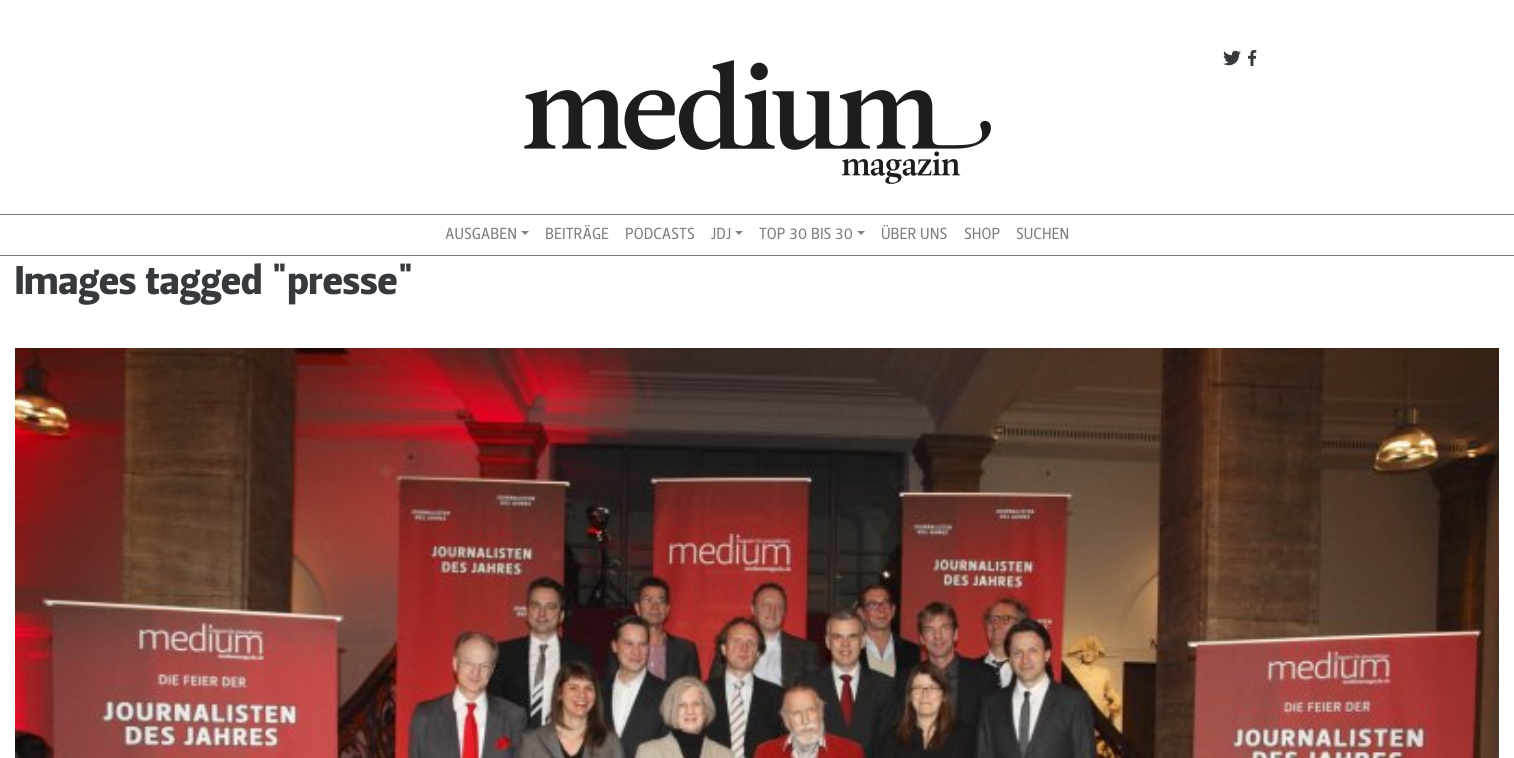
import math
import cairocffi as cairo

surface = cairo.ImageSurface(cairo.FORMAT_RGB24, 1514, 758)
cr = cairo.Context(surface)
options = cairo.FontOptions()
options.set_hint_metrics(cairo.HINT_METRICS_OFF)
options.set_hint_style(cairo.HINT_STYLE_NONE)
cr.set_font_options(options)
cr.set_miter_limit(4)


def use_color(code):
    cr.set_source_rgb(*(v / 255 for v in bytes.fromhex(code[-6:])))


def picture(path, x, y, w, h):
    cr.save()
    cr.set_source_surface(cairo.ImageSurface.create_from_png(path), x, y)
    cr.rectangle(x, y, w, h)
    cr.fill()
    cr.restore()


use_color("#ffffff")
cr.paint()
picture("img1.png", 1223, 50, 18, 16)
picture("img2.png", 1248, 50, 9, 16)
picture("img3.png", 524, 60, 467, 124)
use_color("#7d7878")
cr.rectangle(0, 214, 1514, 1)
cr.fill()
cr.rectangle(0, 255, 1514, 1)
cr.fill()
cr.select_font_face("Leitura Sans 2")
cr.set_font_size(16)
use_color("#808080")
cr.move_to(445, 239)
cr.show_text("AUSGABEN")
cr.new_path()
cr.move_to(521, 231)
cr.line_to(529, 231)
cr.line_to(525, 235)
cr.close_path()
cr.fill()
cr.move_to(545, 239)
cr.show_text("BEITRÄGE")
cr.move_to(625, 239)
cr.show_text("PODCASTS")
cr.move_to(711, 239)
cr.show_text("JDJ")
cr.new_path()
cr.move_to(735, 231)
cr.line_to(743, 231)
cr.line_to(739, 235)
cr.close_path()
cr.fill()
cr.move_to(759, 239)
cr.show_text("TOP 30 BIS 30")
cr.new_path()
cr.move_to(857, 231)
cr.line_to(865, 231)
cr.line_to(861, 235)
cr.close_path()
cr.fill()
cr.move_to(881, 239)
cr.show_text("ÜBER UNS")
cr.move_to(964, 239)
cr.show_text("SHOP")
cr.move_to(1016, 239)
cr.show_text("SUCHEN")
cr.select_font_face("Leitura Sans")
cr.set_font_size(40)
use_color("#373a3c")
cr.move_to(15, 294)
cr.show_text("Images tagged \"presse\"")
picture("img4.png", 15, 348, 1484, 410)
surface.write_to_png("result.png")
